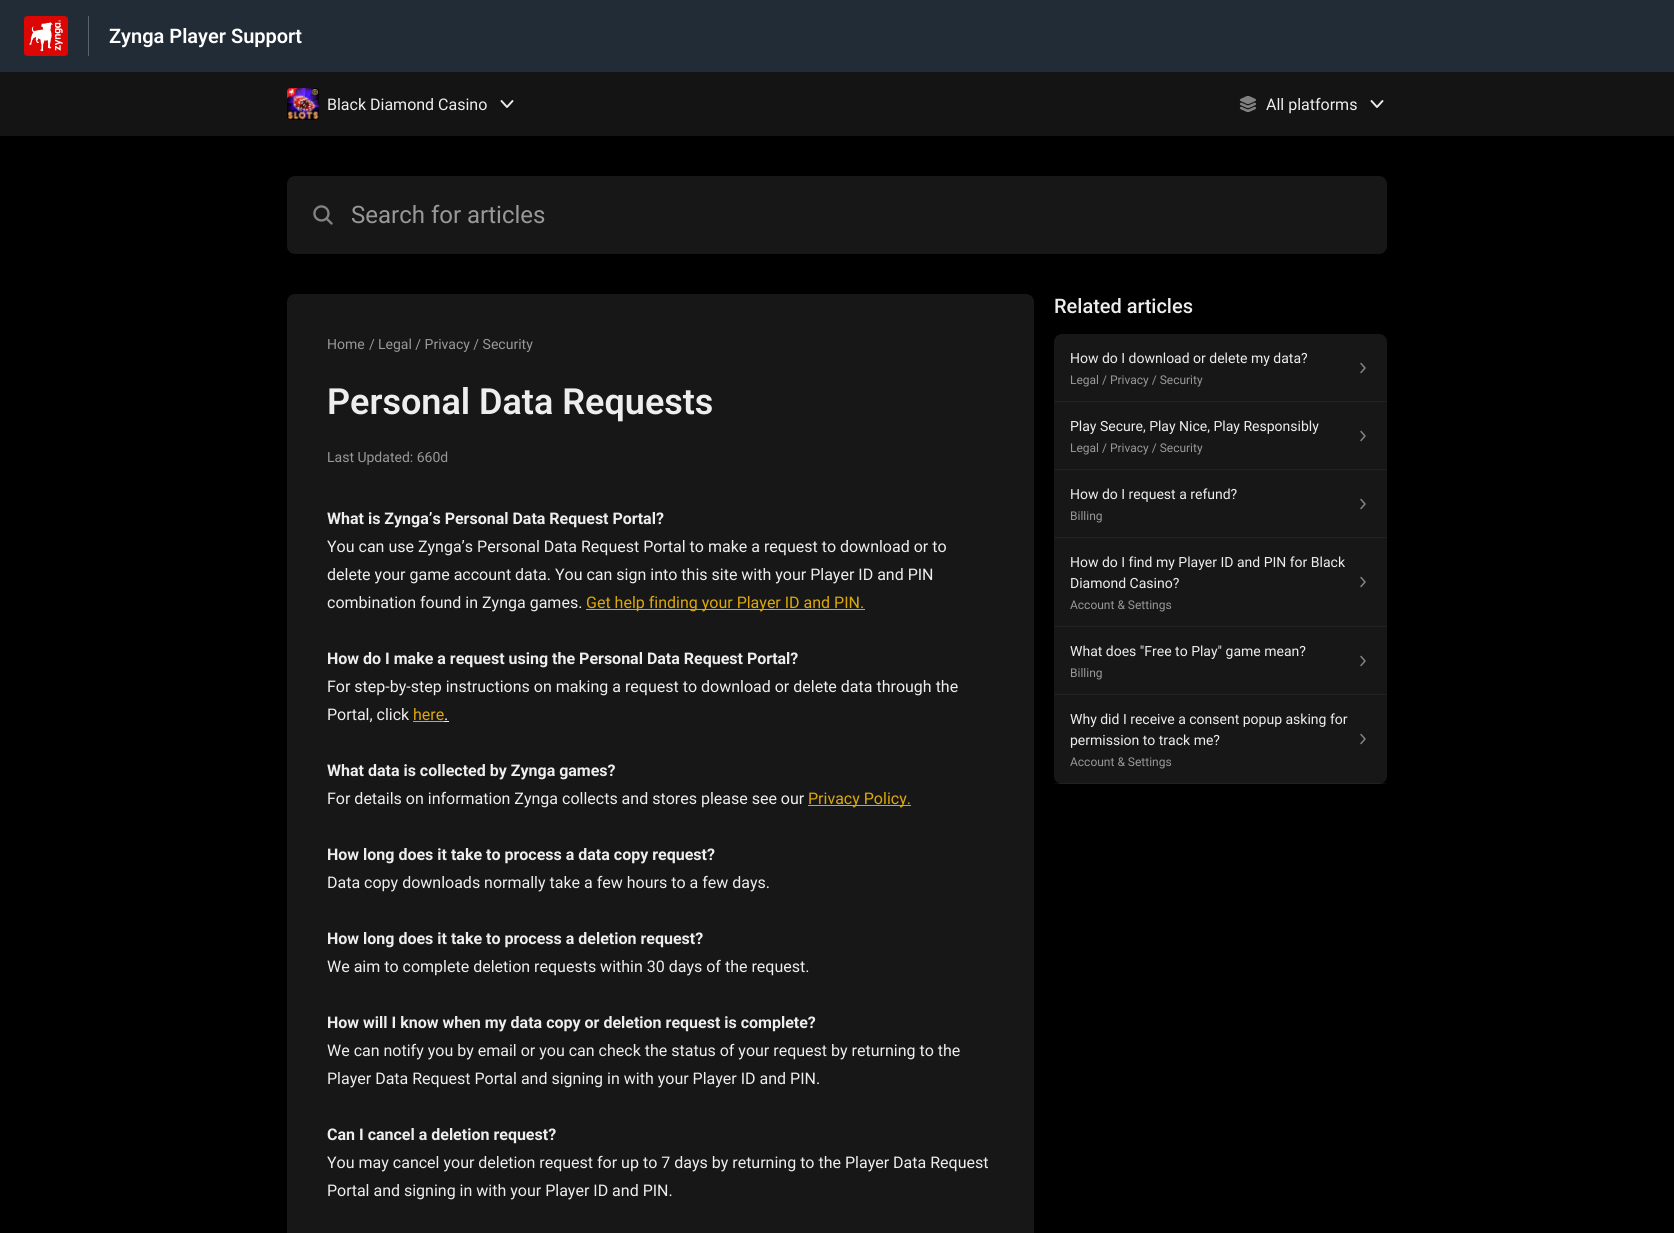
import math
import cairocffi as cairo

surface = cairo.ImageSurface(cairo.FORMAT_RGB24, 1674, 1233)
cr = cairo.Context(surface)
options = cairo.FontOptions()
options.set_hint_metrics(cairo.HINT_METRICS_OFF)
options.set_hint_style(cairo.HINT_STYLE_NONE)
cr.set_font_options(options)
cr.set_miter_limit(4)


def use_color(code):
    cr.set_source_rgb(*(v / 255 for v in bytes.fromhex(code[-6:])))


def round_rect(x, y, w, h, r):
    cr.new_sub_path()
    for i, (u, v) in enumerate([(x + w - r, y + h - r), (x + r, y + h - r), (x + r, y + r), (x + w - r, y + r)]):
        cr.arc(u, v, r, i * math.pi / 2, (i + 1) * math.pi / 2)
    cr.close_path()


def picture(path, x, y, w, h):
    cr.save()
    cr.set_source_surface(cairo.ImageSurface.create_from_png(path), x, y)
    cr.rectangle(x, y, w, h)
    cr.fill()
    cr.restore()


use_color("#000000")
cr.paint()
use_color("#222c37")
cr.rectangle(0, 0, 1674, 72)
cr.fill()
use_color("#596169")
cr.rectangle(88, 16, 1, 40)
cr.fill()
picture("img1.png", 24, 16, 44, 40)
cr.select_font_face("Roboto SemiBold")
cr.set_font_size(20)
use_color("#ffffff")
cr.move_to(109, 43)
cr.show_text("Zynga Player Support")
use_color("#141414")
cr.rectangle(0, 72, 1674, 64)
cr.fill()
picture("img2.png", 287, 88, 32, 32)
cr.select_font_face("Roboto")
cr.set_font_size(16)
use_color("#eeeeee")
cr.move_to(327, 110)
cr.show_text("Black Diamond Casino")
cr.new_path()
cr.move_to(501.5, 101)
cr.line_to(507, 107)
cr.line_to(512.5, 101)
cr.set_line_width(1.9)
cr.set_line_cap(cairo.LINE_CAP_ROUND)
cr.set_line_join(cairo.LINE_JOIN_ROUND)
cr.stroke()
picture("img3.png", 1239, 95, 17, 18)
cr.move_to(1266, 110)
cr.show_text("All platforms")
cr.new_path()
cr.move_to(1371.5, 101)
cr.line_to(1377, 107)
cr.line_to(1382.5, 101)
cr.stroke()
use_color("#171717")
round_rect(287, 176, 1100, 78, 8)
cr.fill()
picture("img4.png", 313, 205, 20, 20)
cr.set_font_size(24)
use_color("#989898")
cr.move_to(351, 223)
cr.show_text("Search for articles")
use_color("#171717")
cr.new_path()
cr.move_to(295, 294)
cr.line_to(1026, 294)
cr.curve_to(1030.5, 294, 1034, 297.5, 1034, 302)
cr.line_to(1034, 1233)
cr.line_to(287, 1233)
cr.line_to(287, 302)
cr.curve_to(287, 297.5, 290.5, 294, 295, 294)
cr.close_path()
cr.fill()
cr.set_font_size(14)
use_color("#989898")
cr.move_to(327, 349)
cr.show_text("Home")
cr.move_to(369, 349)
cr.show_text("/")
cr.move_to(378, 349)
cr.show_text("Legal / Privacy / Security")
cr.select_font_face("Roboto SemiBold")
cr.set_font_size(36)
use_color("#eeeeee")
cr.move_to(327, 414)
cr.show_text("Personal Data Requests")
cr.select_font_face("Roboto")
cr.set_font_size(14)
use_color("#989898")
cr.move_to(327, 462)
cr.show_text("Last Updated: 660d")
cr.select_font_face("Roboto", cairo.FONT_SLANT_NORMAL, cairo.FONT_WEIGHT_BOLD)
cr.set_font_size(16)
use_color("#eeeeee")
cr.move_to(327, 524)
cr.show_text("What is Zynga’s Personal Data Request Portal?")
cr.select_font_face("Roboto")
cr.move_to(327, 552)
cr.show_text("You can use Zynga’s Personal Data Request Portal to make a request to download or to")
cr.move_to(327, 580)
cr.show_text("delete your game account data. You can sign into this site with your Player ID and PIN")
cr.move_to(327, 608)
cr.show_text("combination found in Zynga games.")
use_color("#dca80c")
cr.rectangle(586, 609, 279, 1)
cr.fill()
cr.move_to(586, 608)
cr.show_text("Get help finding your Player ID and PIN.")
cr.select_font_face("Roboto", cairo.FONT_SLANT_NORMAL, cairo.FONT_WEIGHT_BOLD)
use_color("#eeeeee")
cr.move_to(327, 664)
cr.show_text("How do I make a request using the Personal Data Request Portal?")
cr.select_font_face("Roboto")
cr.move_to(327, 692)
cr.show_text("For step-by-step instructions on making a request to download or delete data through the")
cr.move_to(327, 720)
cr.show_text("Portal, click")
use_color("#dca80c")
cr.move_to(413, 720)
cr.show_text("here")
cr.rectangle(413, 721, 31, 1)
cr.fill()
use_color("#eeeeee")
cr.move_to(444, 720)
cr.show_text(".")
cr.rectangle(444, 721, 5, 1)
cr.fill()
cr.select_font_face("Roboto", cairo.FONT_SLANT_NORMAL, cairo.FONT_WEIGHT_BOLD)
cr.move_to(327, 776)
cr.show_text("What data is collected by Zynga games?")
cr.select_font_face("Roboto")
cr.move_to(327, 804)
cr.show_text("For details on information Zynga collects and stores please see our")
use_color("#dca80c")
cr.rectangle(808, 805, 103, 1)
cr.fill()
cr.move_to(808, 804)
cr.show_text("Privacy Policy.")
cr.select_font_face("Roboto", cairo.FONT_SLANT_NORMAL, cairo.FONT_WEIGHT_BOLD)
use_color("#eeeeee")
cr.move_to(327, 860)
cr.show_text("How long does it take to process a data copy request?")
cr.select_font_face("Roboto")
cr.move_to(327, 888)
cr.show_text("Data copy downloads normally take a few hours to a few days.")
cr.select_font_face("Roboto", cairo.FONT_SLANT_NORMAL, cairo.FONT_WEIGHT_BOLD)
cr.move_to(327, 944)
cr.show_text("How long does it take to process a deletion request?")
cr.select_font_face("Roboto")
cr.move_to(327, 972)
cr.show_text("We aim to complete deletion requests within 30 days of the request.")
cr.select_font_face("Roboto", cairo.FONT_SLANT_NORMAL, cairo.FONT_WEIGHT_BOLD)
cr.move_to(327, 1028)
cr.show_text("How will I know when my data copy or deletion request is complete?")
cr.select_font_face("Roboto")
cr.move_to(327, 1056)
cr.show_text("We can notify you by email or you can check the status of your request by returning to the")
cr.move_to(327, 1084)
cr.show_text("Player Data Request Portal and signing in with your Player ID and PIN.")
cr.select_font_face("Roboto", cairo.FONT_SLANT_NORMAL, cairo.FONT_WEIGHT_BOLD)
cr.move_to(327, 1140)
cr.show_text("Can I cancel a deletion request?")
cr.select_font_face("Roboto")
cr.move_to(327, 1168)
cr.show_text("You may cancel your deletion request for up to 7 days by returning to the Player Data Request")
cr.move_to(327, 1196)
cr.show_text("Portal and signing in with your Player ID and PIN.")
cr.select_font_face("Roboto Medium")
cr.set_font_size(20)
cr.move_to(1054, 313)
cr.show_text("Related articles")
use_color("#171717")
round_rect(1054, 334, 333, 450, 8)
cr.fill()
use_color("#222222")
cr.rectangle(1054, 401, 333, 1)
cr.fill()
cr.select_font_face("Roboto")
cr.set_font_size(14)
use_color("#eeeeee")
cr.move_to(1070, 363)
cr.show_text("How do I download or delete my data?")
cr.set_font_size(12)
use_color("#989898")
cr.move_to(1070, 384)
cr.show_text("Legal / Privacy / Security")
cr.new_path()
cr.move_to(1361, 363.5)
cr.line_to(1365, 368)
cr.line_to(1361, 372.5)
use_color("#838383")
cr.set_line_width(1.5)
cr.stroke()
use_color("#222222")
cr.rectangle(1054, 469, 333, 1)
cr.fill()
cr.set_font_size(14)
use_color("#eeeeee")
cr.move_to(1070, 431)
cr.show_text("Play Secure, Play Nice, Play Responsibly")
cr.set_font_size(12)
use_color("#989898")
cr.move_to(1070, 452)
cr.show_text("Legal / Privacy / Security")
cr.new_path()
cr.move_to(1361, 431.5)
cr.line_to(1365, 436)
cr.line_to(1361, 440.5)
use_color("#838383")
cr.stroke()
use_color("#222222")
cr.rectangle(1054, 537, 333, 1)
cr.fill()
cr.set_font_size(14)
use_color("#eeeeee")
cr.move_to(1070, 499)
cr.show_text("How do I request a refund?")
cr.set_font_size(12)
use_color("#989898")
cr.move_to(1070, 520)
cr.show_text("Billing")
cr.new_path()
cr.move_to(1361, 499.5)
cr.line_to(1365, 504)
cr.line_to(1361, 508.5)
use_color("#838383")
cr.stroke()
use_color("#222222")
cr.rectangle(1054, 626, 333, 1)
cr.fill()
cr.set_font_size(14)
use_color("#eeeeee")
cr.move_to(1070, 567)
cr.show_text("How do I find my Player ID and PIN for Black")
cr.move_to(1070, 588)
cr.show_text("Diamond Casino?")
cr.set_font_size(12)
use_color("#989898")
cr.move_to(1070, 609)
cr.show_text("Account & Settings")
cr.new_path()
cr.move_to(1361, 577.5)
cr.line_to(1365, 582)
cr.line_to(1361, 586.5)
use_color("#838383")
cr.stroke()
use_color("#222222")
cr.rectangle(1054, 694, 333, 1)
cr.fill()
cr.set_font_size(14)
use_color("#eeeeee")
cr.move_to(1070, 656)
cr.show_text("What does \"Free to Play\" game mean?")
cr.set_font_size(12)
use_color("#989898")
cr.move_to(1070, 677)
cr.show_text("Billing")
cr.new_path()
cr.move_to(1361, 656.5)
cr.line_to(1365, 661)
cr.line_to(1361, 665.5)
use_color("#838383")
cr.stroke()
cr.set_source_rgba(0.933, 0.933, 0.933, 0.05)
cr.rectangle(1054, 783, 333, 1)
cr.fill()
cr.set_font_size(14)
use_color("#eeeeee")
cr.move_to(1070, 724)
cr.show_text("Why did I receive a consent popup asking for")
cr.move_to(1070, 745)
cr.show_text("permission to track me?")
cr.set_font_size(12)
use_color("#989898")
cr.move_to(1070, 766)
cr.show_text("Account & Settings")
cr.new_path()
cr.move_to(1361, 734.5)
cr.line_to(1365, 739)
cr.line_to(1361, 743.5)
use_color("#838383")
cr.stroke()
surface.write_to_png("result.png")
